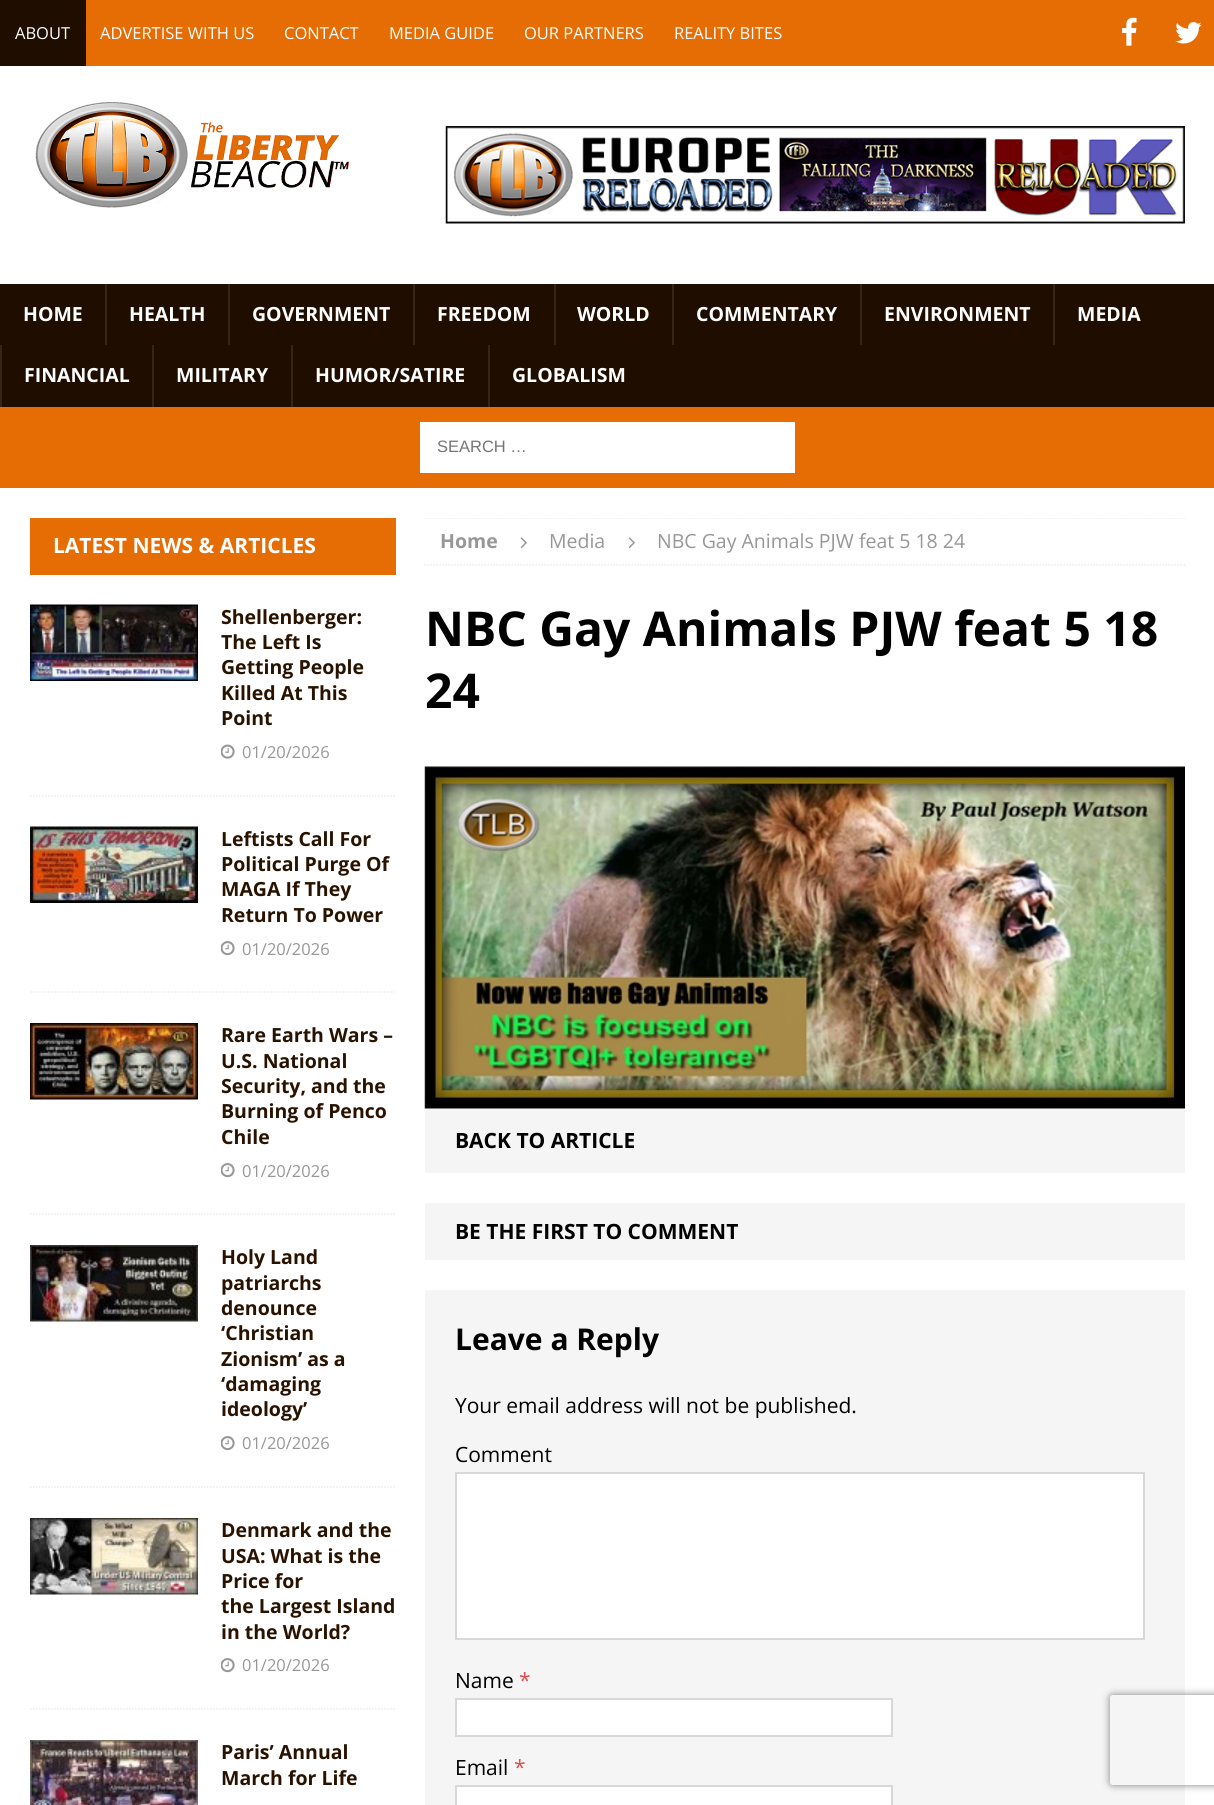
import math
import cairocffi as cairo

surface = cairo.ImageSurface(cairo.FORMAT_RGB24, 1214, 1805)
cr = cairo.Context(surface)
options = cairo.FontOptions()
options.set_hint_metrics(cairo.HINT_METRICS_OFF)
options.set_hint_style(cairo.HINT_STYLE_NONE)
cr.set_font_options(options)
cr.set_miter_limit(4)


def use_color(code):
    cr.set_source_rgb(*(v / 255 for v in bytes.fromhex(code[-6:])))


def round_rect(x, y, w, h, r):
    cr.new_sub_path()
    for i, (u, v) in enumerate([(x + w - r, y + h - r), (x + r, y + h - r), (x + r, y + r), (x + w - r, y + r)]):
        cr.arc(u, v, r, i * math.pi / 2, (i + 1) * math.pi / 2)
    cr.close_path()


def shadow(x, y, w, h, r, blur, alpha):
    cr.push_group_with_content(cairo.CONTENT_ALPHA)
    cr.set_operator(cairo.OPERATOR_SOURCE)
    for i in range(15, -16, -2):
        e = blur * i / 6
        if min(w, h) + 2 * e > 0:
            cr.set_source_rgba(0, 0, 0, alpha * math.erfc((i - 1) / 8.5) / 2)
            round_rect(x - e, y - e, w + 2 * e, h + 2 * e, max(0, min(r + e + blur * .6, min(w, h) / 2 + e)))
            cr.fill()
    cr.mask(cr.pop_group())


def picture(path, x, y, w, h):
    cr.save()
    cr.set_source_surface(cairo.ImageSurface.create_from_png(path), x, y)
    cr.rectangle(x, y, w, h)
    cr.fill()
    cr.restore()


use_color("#e66c04")
cr.paint()
use_color("#1f0e00")
cr.rectangle(0, 0, 86, 66)
cr.fill()
cr.select_font_face("Open Sans")
cr.set_font_size(16.5)
use_color("#ffffff")
cr.move_to(15, 39)
cr.show_text("ABOUT")
cr.move_to(100, 39)
cr.show_text("ADVERTISE WITH US")
cr.move_to(284, 39)
cr.show_text("CONTACT")
cr.move_to(389, 39)
cr.show_text("MEDIA GUIDE")
cr.move_to(524, 39)
cr.show_text("OUR PARTNERS")
cr.move_to(674, 39)
cr.show_text("REALITY BITES")
picture("img1.png", 1122, 17, 15, 29)
picture("img2.png", 1175, 22, 27, 22)
cr.rectangle(0, 66, 1214, 218)
cr.fill()
picture("img3.png", 35, 101, 314, 107)
picture("img4.png", 445, 126, 740, 98)
use_color("#1f0e00")
cr.rectangle(0, 284, 1214, 123)
cr.fill()
cr.select_font_face("Open Sans", cairo.FONT_SLANT_NORMAL, cairo.FONT_WEIGHT_BOLD)
cr.set_font_size(19.5)
use_color("#ffffff")
cr.move_to(23, 321)
cr.show_text("HOME")
use_color("#35261a")
cr.rectangle(105, 284, 2, 61)
cr.fill()
use_color("#ffffff")
cr.move_to(129, 321)
cr.show_text("HEALTH")
use_color("#35261a")
cr.rectangle(228, 284, 2, 61)
cr.fill()
use_color("#ffffff")
cr.move_to(252, 321)
cr.show_text("GOVERNMENT")
use_color("#35261a")
cr.rectangle(413, 284, 2, 61)
cr.fill()
use_color("#ffffff")
cr.move_to(437, 321)
cr.show_text("FREEDOM")
use_color("#35261a")
cr.rectangle(554, 284, 2, 61)
cr.fill()
use_color("#ffffff")
cr.move_to(577, 321)
cr.show_text("WORLD")
use_color("#35261a")
cr.rectangle(672, 284, 2, 61)
cr.fill()
use_color("#ffffff")
cr.move_to(696, 321)
cr.show_text("COMMENTARY")
use_color("#35261a")
cr.rectangle(860, 284, 2, 61)
cr.fill()
use_color("#ffffff")
cr.move_to(884, 321)
cr.show_text("ENVIRONMENT")
use_color("#35261a")
cr.rectangle(1053, 284, 2, 61)
cr.fill()
use_color("#ffffff")
cr.move_to(1077, 321)
cr.show_text("MEDIA")
use_color("#35261a")
cr.rectangle(0, 345, 2, 62)
cr.fill()
use_color("#ffffff")
cr.move_to(24, 382)
cr.show_text("FINANCIAL")
use_color("#35261a")
cr.rectangle(152, 345, 2, 62)
cr.fill()
use_color("#ffffff")
cr.move_to(176, 382)
cr.show_text("MILITARY")
use_color("#35261a")
cr.rectangle(291, 345, 2, 62)
cr.fill()
use_color("#ffffff")
cr.move_to(315, 382)
cr.show_text("HUMOR/SATIRE")
use_color("#35261a")
cr.rectangle(488, 345, 2, 62)
cr.fill()
use_color("#ffffff")
cr.move_to(512, 382)
cr.show_text("GLOBALISM")
cr.rectangle(420, 422, 375, 51)
cr.fill()
cr.select_font_face("Liberation Sans")
cr.set_font_size(16.5)
use_color("#757575")
cr.move_to(437, 452)
cr.show_text("SEARCH …")
use_color("#ffffff")
cr.rectangle(0, 488, 1214, 1317)
cr.fill()
use_color("#e66c04")
cr.rectangle(30, 518, 366, 57)
cr.fill()
cr.select_font_face("Open Sans", cairo.FONT_SLANT_NORMAL, cairo.FONT_WEIGHT_BOLD)
cr.set_font_size(21)
use_color("#ffffff")
cr.move_to(53, 553)
cr.show_text("LATEST NEWS & ARTICLES")
cr.new_path()
cr.move_to(30, 796)
cr.line_to(396, 796)
use_color("#ebebeb")
cr.set_line_width(1.5)
cr.set_dash([1.5, 1.5])
cr.stroke()
picture("img5.png", 30, 604, 168, 77)
cr.set_font_size(19.5)
use_color("#291300")
cr.move_to(221, 624)
cr.show_text("Shellenberger:")
cr.move_to(221, 649)
cr.show_text("The Left Is")
cr.move_to(221, 674)
cr.show_text("Getting People")
cr.move_to(221, 700)
cr.show_text("Killed At This")
cr.move_to(221, 725)
cr.show_text("Point")
picture("img6.png", 221, 744, 14, 15)
cr.select_font_face("Open Sans")
cr.set_font_size(16.5)
use_color("#979797")
cr.move_to(242, 758)
cr.show_text("01/20/2026")
cr.new_path()
cr.move_to(30, 992)
cr.line_to(396, 992)
use_color("#ebebeb")
cr.stroke()
picture("img7.png", 30, 826, 168, 77)
cr.select_font_face("Open Sans", cairo.FONT_SLANT_NORMAL, cairo.FONT_WEIGHT_BOLD)
cr.set_font_size(19.5)
use_color("#291300")
cr.move_to(221, 846)
cr.show_text("Leftists Call For")
cr.move_to(221, 871)
cr.show_text("Political Purge Of")
cr.move_to(221, 896)
cr.show_text("MAGA If They")
cr.move_to(221, 922)
cr.show_text("Return To Power")
picture("img8.png", 221, 941, 14, 15)
cr.select_font_face("Open Sans")
cr.set_font_size(16.5)
use_color("#979797")
cr.move_to(242, 955)
cr.show_text("01/20/2026")
cr.new_path()
cr.move_to(30, 1214)
cr.line_to(396, 1214)
use_color("#ebebeb")
cr.stroke()
picture("img9.png", 30, 1023, 168, 77)
cr.select_font_face("Open Sans", cairo.FONT_SLANT_NORMAL, cairo.FONT_WEIGHT_BOLD)
cr.set_font_size(19.5)
use_color("#291300")
cr.move_to(221, 1042)
cr.show_text("Rare Earth Wars –")
cr.move_to(221, 1068)
cr.show_text("U.S. National")
cr.move_to(221, 1093)
cr.show_text("Security, and the")
cr.move_to(221, 1118)
cr.show_text("Burning of Penco")
cr.move_to(221, 1144)
cr.show_text("Chile")
picture("img8.png", 221, 1163, 14, 15)
cr.select_font_face("Open Sans")
cr.set_font_size(16.5)
use_color("#979797")
cr.move_to(242, 1177)
cr.show_text("01/20/2026")
cr.new_path()
cr.move_to(30, 1487)
cr.line_to(396, 1487)
use_color("#ebebeb")
cr.stroke()
picture("img10.png", 30, 1245, 168, 77)
cr.select_font_face("Open Sans", cairo.FONT_SLANT_NORMAL, cairo.FONT_WEIGHT_BOLD)
cr.set_font_size(19.5)
use_color("#291300")
cr.move_to(221, 1264)
cr.show_text("Holy Land")
cr.move_to(221, 1290)
cr.show_text("patriarchs")
cr.move_to(221, 1315)
cr.show_text("denounce")
cr.move_to(221, 1340)
cr.show_text("‘Christian")
cr.move_to(221, 1366)
cr.show_text("Zionism’ as a")
cr.move_to(221, 1391)
cr.show_text("‘damaging")
cr.move_to(221, 1416)
cr.show_text("ideology’")
picture("img8.png", 221, 1436, 14, 15)
cr.select_font_face("Open Sans")
cr.set_font_size(16.5)
use_color("#979797")
cr.move_to(242, 1449)
cr.show_text("01/20/2026")
cr.new_path()
cr.move_to(30, 1709)
cr.line_to(396, 1709)
use_color("#ebebeb")
cr.stroke()
picture("img11.png", 30, 1518, 168, 77)
cr.select_font_face("Open Sans", cairo.FONT_SLANT_NORMAL, cairo.FONT_WEIGHT_BOLD)
cr.set_font_size(19.5)
use_color("#291300")
cr.move_to(221, 1537)
cr.show_text("Denmark and the")
cr.move_to(221, 1563)
cr.show_text("USA: What is the")
cr.move_to(221, 1588)
cr.show_text("Price for")
cr.move_to(221, 1613)
cr.show_text("the Largest Island")
cr.move_to(221, 1639)
cr.show_text("in the World?")
picture("img8.png", 221, 1658, 14, 15)
cr.select_font_face("Open Sans")
cr.set_font_size(16.5)
use_color("#979797")
cr.move_to(242, 1671)
cr.show_text("01/20/2026")
picture("img12.png", 30, 1740, 168, 65)
cr.select_font_face("Open Sans", cairo.FONT_SLANT_NORMAL, cairo.FONT_WEIGHT_BOLD)
cr.set_font_size(19.5)
use_color("#291300")
cr.move_to(221, 1759)
cr.show_text("Paris’ Annual")
cr.move_to(221, 1785)
cr.show_text("March for Life")
cr.save()
cr.rectangle(425, 518, 760, 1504)
cr.clip()
cr.new_path()
cr.move_to(424.5, 518)
cr.line_to(1185, 518)
use_color("#ebebeb")
cr.stroke()
cr.restore()
cr.new_path()
cr.move_to(424.5, 565)
cr.line_to(1185, 565)
use_color("#ebebeb")
cr.stroke()
use_color("#979797")
cr.move_to(440, 548)
cr.show_text("Home")
picture("img13.png", 520, 537, 7, 12)
cr.select_font_face("Open Sans")
cr.move_to(549, 548)
cr.show_text("Media")
picture("img13.png", 628, 537, 7, 12)
cr.move_to(657, 548)
cr.show_text("NBC Gay Animals PJW feat 5 18 24")
cr.select_font_face("Open Sans", cairo.FONT_SLANT_NORMAL, cairo.FONT_WEIGHT_BOLD)
cr.set_font_size(48)
use_color("#000000")
cr.move_to(425, 646)
cr.show_text("NBC Gay Animals PJW feat 5 18")
cr.move_to(425, 708)
cr.show_text("24")
picture("img14.png", 424, 766, 761, 343)
use_color("#f5f5f5")
cr.rectangle(425, 1109, 760, 64)
cr.fill()
cr.set_font_size(21)
use_color("#000000")
cr.move_to(455, 1148)
cr.show_text("BACK TO ARTICLE")
use_color("#f5f5f5")
cr.rectangle(425, 1203, 760, 57)
cr.fill()
use_color("#000000")
cr.move_to(455, 1239)
cr.show_text("BE THE FIRST TO COMMENT")
use_color("#f5f5f5")
cr.rectangle(425, 1290, 760, 515)
cr.fill()
cr.set_font_size(30)
use_color("#000000")
cr.move_to(455, 1350)
cr.show_text("Leave a Reply")
cr.select_font_face("Open Sans")
cr.set_font_size(21)
cr.move_to(455, 1413)
cr.show_text("Your email address will not be published.")
cr.move_to(455, 1462)
cr.show_text("Comment")
use_color("#ffffff")
cr.rectangle(456, 1473, 688, 166)
cr.fill_preserve()
use_color("#d7d8d8")
cr.set_line_width(2)
cr.set_dash([])
cr.stroke()
use_color("#000000")
cr.move_to(455, 1688)
cr.show_text("Name")
use_color("#e64946")
cr.move_to(519, 1688)
cr.show_text("*")
use_color("#ffffff")
cr.rectangle(456, 1699, 436, 37)
cr.fill_preserve()
use_color("#d7d8d8")
cr.stroke()
use_color("#000000")
cr.move_to(455, 1775)
cr.show_text("Email")
use_color("#e64946")
cr.move_to(514, 1775)
cr.show_text("*")
use_color("#ffffff")
cr.rectangle(456, 1786, 436, 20)
cr.fill_preserve()
use_color("#d7d8d8")
cr.stroke()
cr.save()
cr.set_fill_rule(cairo.FILL_RULE_EVEN_ODD)
cr.new_path()
cr.move_to(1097, 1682)
cr.line_to(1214, 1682)
cr.line_to(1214, 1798)
cr.line_to(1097, 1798)
cr.close_path()
cr.move_to(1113, 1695)
cr.line_to(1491, 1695)
cr.curve_to(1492.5, 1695, 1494, 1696.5, 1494, 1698)
cr.line_to(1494, 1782)
cr.curve_to(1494, 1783.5, 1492.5, 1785, 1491, 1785)
cr.line_to(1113, 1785)
cr.curve_to(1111.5, 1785, 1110, 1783.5, 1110, 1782)
cr.line_to(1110, 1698)
cr.curve_to(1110, 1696.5, 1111.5, 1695, 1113, 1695)
cr.close_path()
cr.clip()
use_color("#808080")
shadow(1110, 1695, 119, 90, 3, 4, 1)
cr.restore()
surface.write_to_png("result.png")
